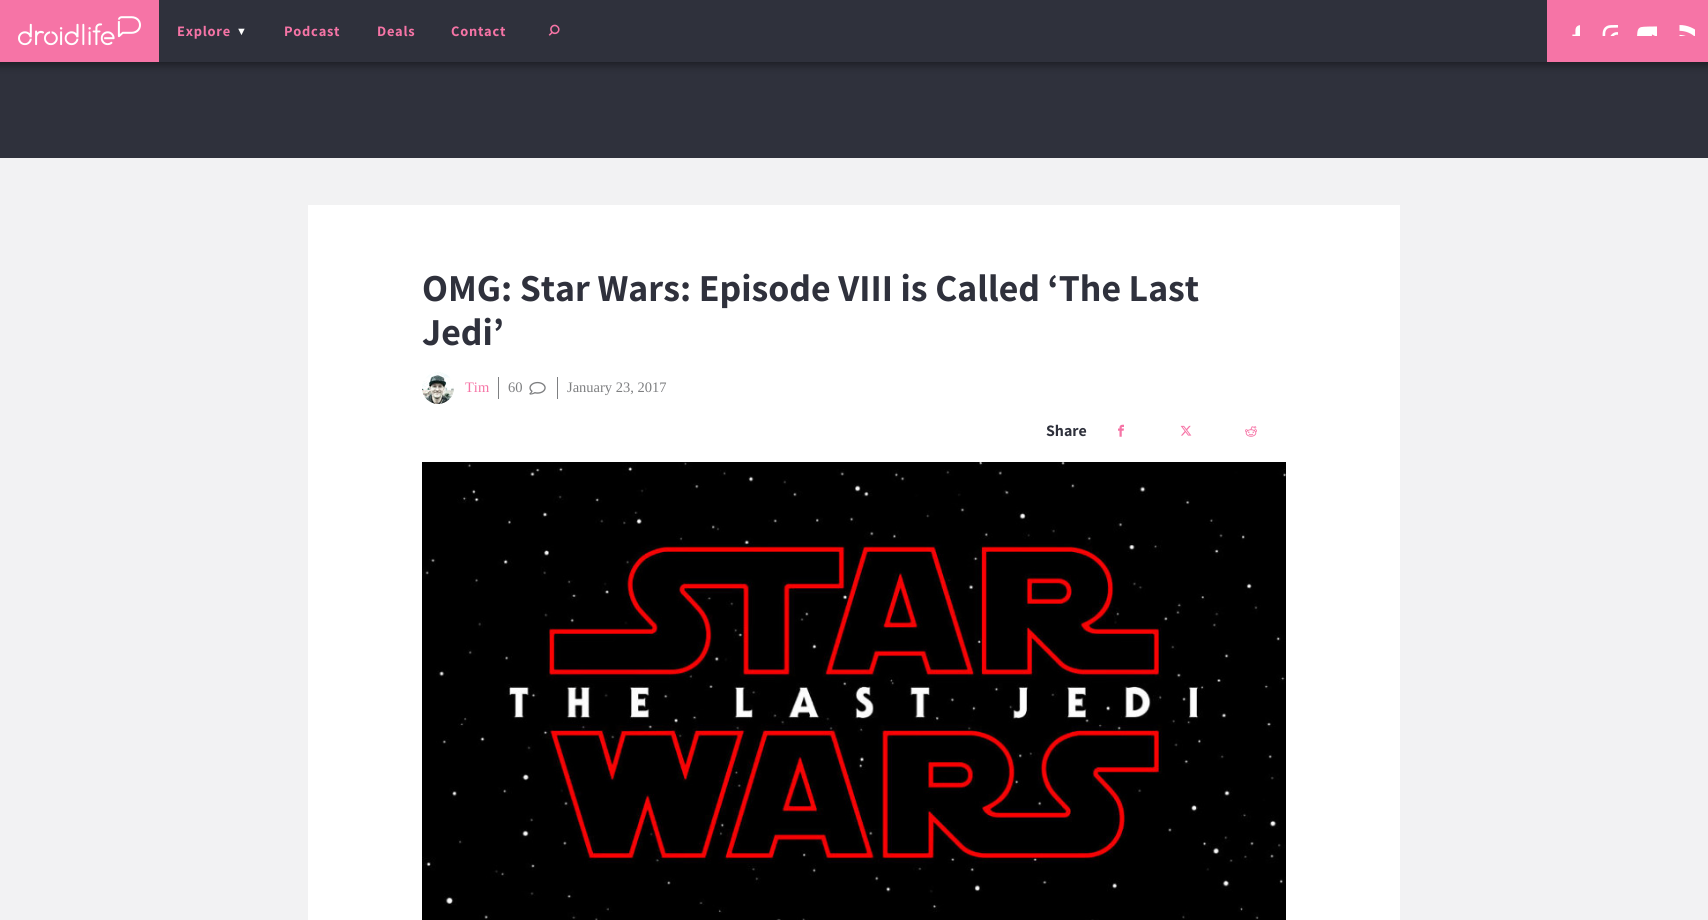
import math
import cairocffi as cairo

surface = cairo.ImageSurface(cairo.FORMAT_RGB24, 1708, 920)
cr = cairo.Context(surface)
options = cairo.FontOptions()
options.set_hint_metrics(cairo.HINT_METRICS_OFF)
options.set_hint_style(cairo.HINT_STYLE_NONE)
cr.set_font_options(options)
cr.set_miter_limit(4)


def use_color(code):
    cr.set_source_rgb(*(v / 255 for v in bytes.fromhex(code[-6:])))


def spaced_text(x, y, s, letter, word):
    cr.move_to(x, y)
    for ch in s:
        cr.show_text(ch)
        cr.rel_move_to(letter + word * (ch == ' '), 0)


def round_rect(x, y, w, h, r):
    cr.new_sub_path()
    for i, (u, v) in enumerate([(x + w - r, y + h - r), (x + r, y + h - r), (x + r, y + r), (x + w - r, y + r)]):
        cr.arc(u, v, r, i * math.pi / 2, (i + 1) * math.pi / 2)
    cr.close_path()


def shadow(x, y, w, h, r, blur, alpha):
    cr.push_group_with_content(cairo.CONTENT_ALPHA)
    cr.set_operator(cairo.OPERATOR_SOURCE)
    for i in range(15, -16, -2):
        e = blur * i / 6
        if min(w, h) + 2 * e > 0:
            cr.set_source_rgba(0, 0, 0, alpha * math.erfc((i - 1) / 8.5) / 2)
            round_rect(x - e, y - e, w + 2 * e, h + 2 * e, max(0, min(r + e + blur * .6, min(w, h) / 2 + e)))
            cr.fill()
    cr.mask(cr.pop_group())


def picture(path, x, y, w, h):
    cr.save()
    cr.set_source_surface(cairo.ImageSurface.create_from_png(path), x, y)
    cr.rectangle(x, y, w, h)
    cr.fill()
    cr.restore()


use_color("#f2f2f3")
cr.paint()
use_color("#2f313c")
cr.rectangle(0, 62, 1708, 96)
cr.fill()
use_color("#000000")
shadow(-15, -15, 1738, 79, 0, 5, 0.5)
use_color("#f674a6")
cr.rectangle(0, 0, 159, 62)
cr.fill()
picture("img1.png", 18, 16, 123, 30)
use_color("#2f313c")
cr.rectangle(159, 0, 1388, 62)
cr.fill()
cr.select_font_face("Assistant ExtraLight")
cr.set_font_size(14.5)
use_color("#f674a6")
spaced_text(177, 36, "Explore", 0.75, 0)
cr.select_font_face("Liberation Sans")
cr.set_font_size(11)
use_color("#ffffff")
spaced_text(236, 35, "▼", 0.75, 0)
cr.select_font_face("Assistant ExtraLight")
cr.set_font_size(14.5)
use_color("#f674a6")
spaced_text(284, 36, "Podcast", 0.75, 0)
spaced_text(377, 36, "Deals", 0.75, 0)
spaced_text(451, 36, "Contact", 0.75, 0)
picture("img2.png", 548, 24, 12, 12)
cr.rectangle(1547, 0, 161, 62)
cr.fill()
picture("img3.png", 1572, 25, 8, 11)
picture("img4.png", 1602, 25, 16, 11)
picture("img5.png", 1637, 26, 20, 10)
picture("img6.png", 1679, 25, 16, 11)
use_color("#ffffff")
cr.rectangle(308, 205, 1092, 715)
cr.fill()
cr.set_font_size(38.1)
use_color("#2f313c")
cr.move_to(422, 301)
cr.show_text("OMG: Star Wars: Episode VIII is Called ‘The Last")
cr.move_to(422, 345)
cr.show_text("Jedi’")
picture("img7.png", 422, 372, 32, 32)
cr.select_font_face("Liberation Serif")
cr.set_font_size(14.5)
use_color("#f674a6")
cr.move_to(465, 392)
cr.show_text("Tim")
use_color("#7e7f81")
cr.rectangle(498, 377, 1, 22)
cr.fill()
cr.move_to(508, 392)
cr.show_text("60")
picture("img8.png", 529, 381, 17, 14)
cr.rectangle(557, 377, 1, 22)
cr.fill()
cr.move_to(567, 392)
cr.show_text("January 23, 2017")
cr.select_font_face("Assistant ExtraLight")
cr.set_font_size(16)
use_color("#2f313c")
cr.move_to(1046, 436)
cr.show_text("Share")
picture("img9.png", 1118, 424, 6, 13)
picture("img10.png", 1180, 425, 12, 11)
picture("img11.png", 1245, 426, 12, 11)
picture("img12.png", 422, 462, 864, 458)
surface.write_to_png("result.png")
